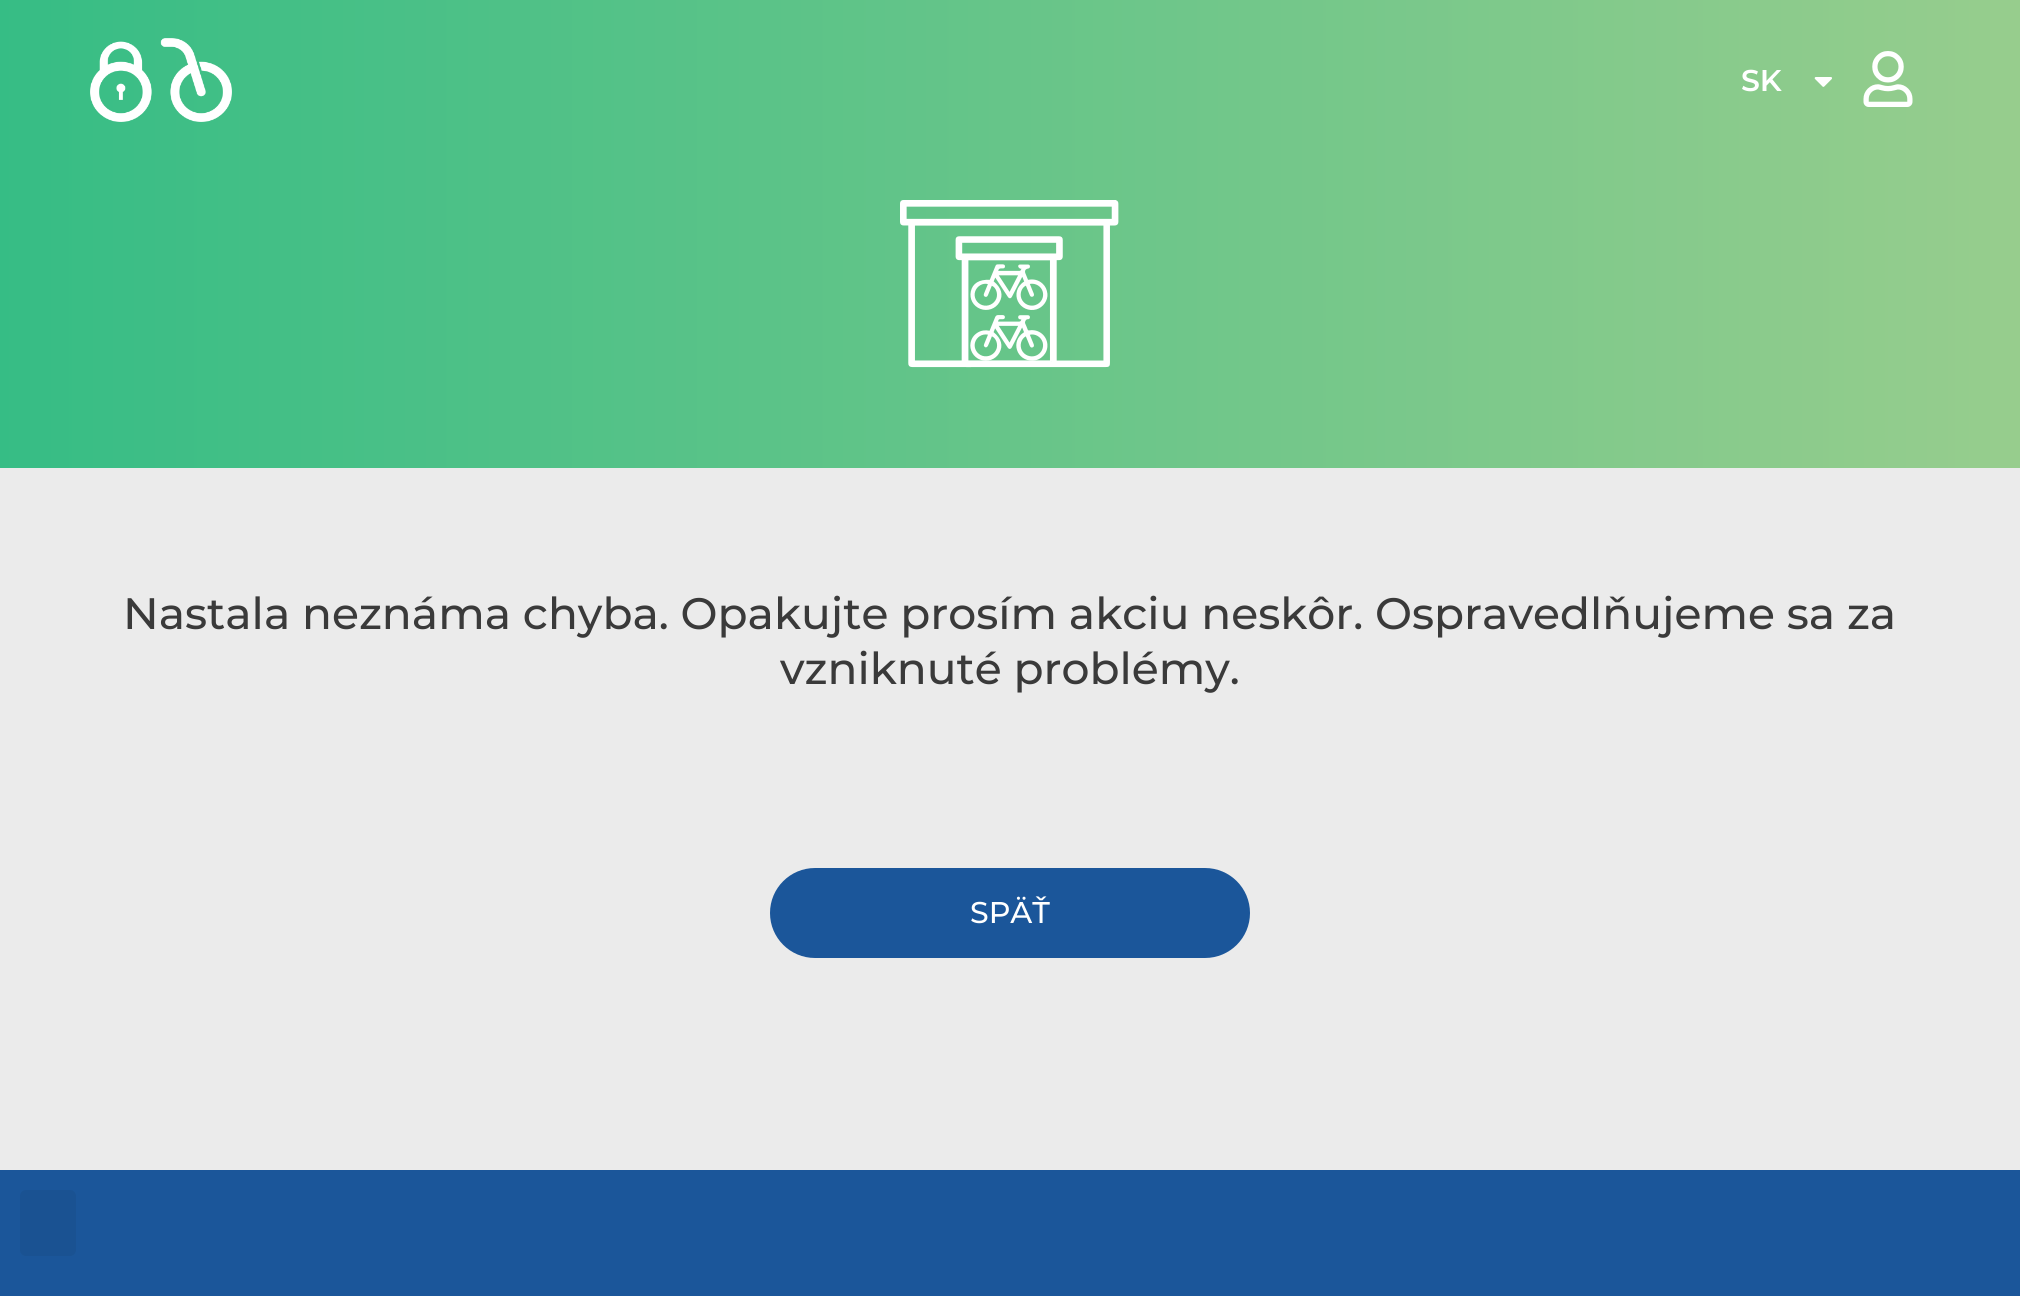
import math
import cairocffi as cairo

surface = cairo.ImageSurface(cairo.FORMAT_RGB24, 2020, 1296)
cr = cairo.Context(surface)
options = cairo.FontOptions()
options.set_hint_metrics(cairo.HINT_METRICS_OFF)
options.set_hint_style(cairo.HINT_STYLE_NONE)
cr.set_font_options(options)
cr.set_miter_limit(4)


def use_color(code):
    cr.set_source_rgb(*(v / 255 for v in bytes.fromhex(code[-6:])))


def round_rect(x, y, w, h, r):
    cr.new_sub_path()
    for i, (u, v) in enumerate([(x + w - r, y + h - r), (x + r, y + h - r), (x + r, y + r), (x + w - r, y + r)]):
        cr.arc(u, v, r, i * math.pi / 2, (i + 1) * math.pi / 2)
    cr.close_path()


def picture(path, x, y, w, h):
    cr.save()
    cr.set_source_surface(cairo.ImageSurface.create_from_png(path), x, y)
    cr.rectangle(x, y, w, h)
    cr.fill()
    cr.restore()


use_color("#ebebeb")
cr.paint()
gradient = cairo.LinearGradient(0, 80, 2020, 80)
gradient.add_color_stop_rgba(0, 0.212, 0.741, 0.522, 1)
gradient.add_color_stop_rgba(1, 0.592, 0.804, 0.553, 1)
cr.set_source(gradient)
cr.rectangle(0, 0, 2020, 160)
cr.fill()
picture("img1.png", 90, 38, 142, 84)
cr.select_font_face("Montserrat SemiBold")
cr.set_font_size(30)
use_color("#ffffff")
cr.move_to(1741, 91)
cr.show_text("SK")
picture("img2.png", 1814, 77, 18, 10)
picture("img3.png", 1863, 51, 50, 56)
gradient = cairo.LinearGradient(0, 314, 2020, 314)
gradient.add_color_stop_rgba(0, 0.212, 0.741, 0.522, 1)
gradient.add_color_stop_rgba(1, 0.592, 0.804, 0.553, 1)
cr.set_source(gradient)
cr.rectangle(0, 160, 2020, 308)
cr.fill()
picture("img4.png", 900, 200, 219, 168)
cr.select_font_face("Montserrat Medium")
cr.set_font_size(44)
use_color("#3a3a3a")
cr.move_to(123, 629)
cr.show_text("Nastala neznáma chyba. Opakujte prosím akciu neskôr. Ospravedlňujeme sa za")
cr.move_to(780, 684)
cr.show_text("vzniknuté problémy.")
use_color("#1b569a")
round_rect(770, 868, 480, 90, 45)
cr.fill()
cr.set_font_size(30)
use_color("#ffffff")
cr.move_to(970, 923)
cr.show_text("SPÄŤ")
use_color("#1b569a")
cr.rectangle(0, 1170, 2020, 126)
cr.fill()
use_color("#1a5292")
round_rect(20, 1190, 56, 66, 6)
cr.fill()
surface.write_to_png("result.png")
